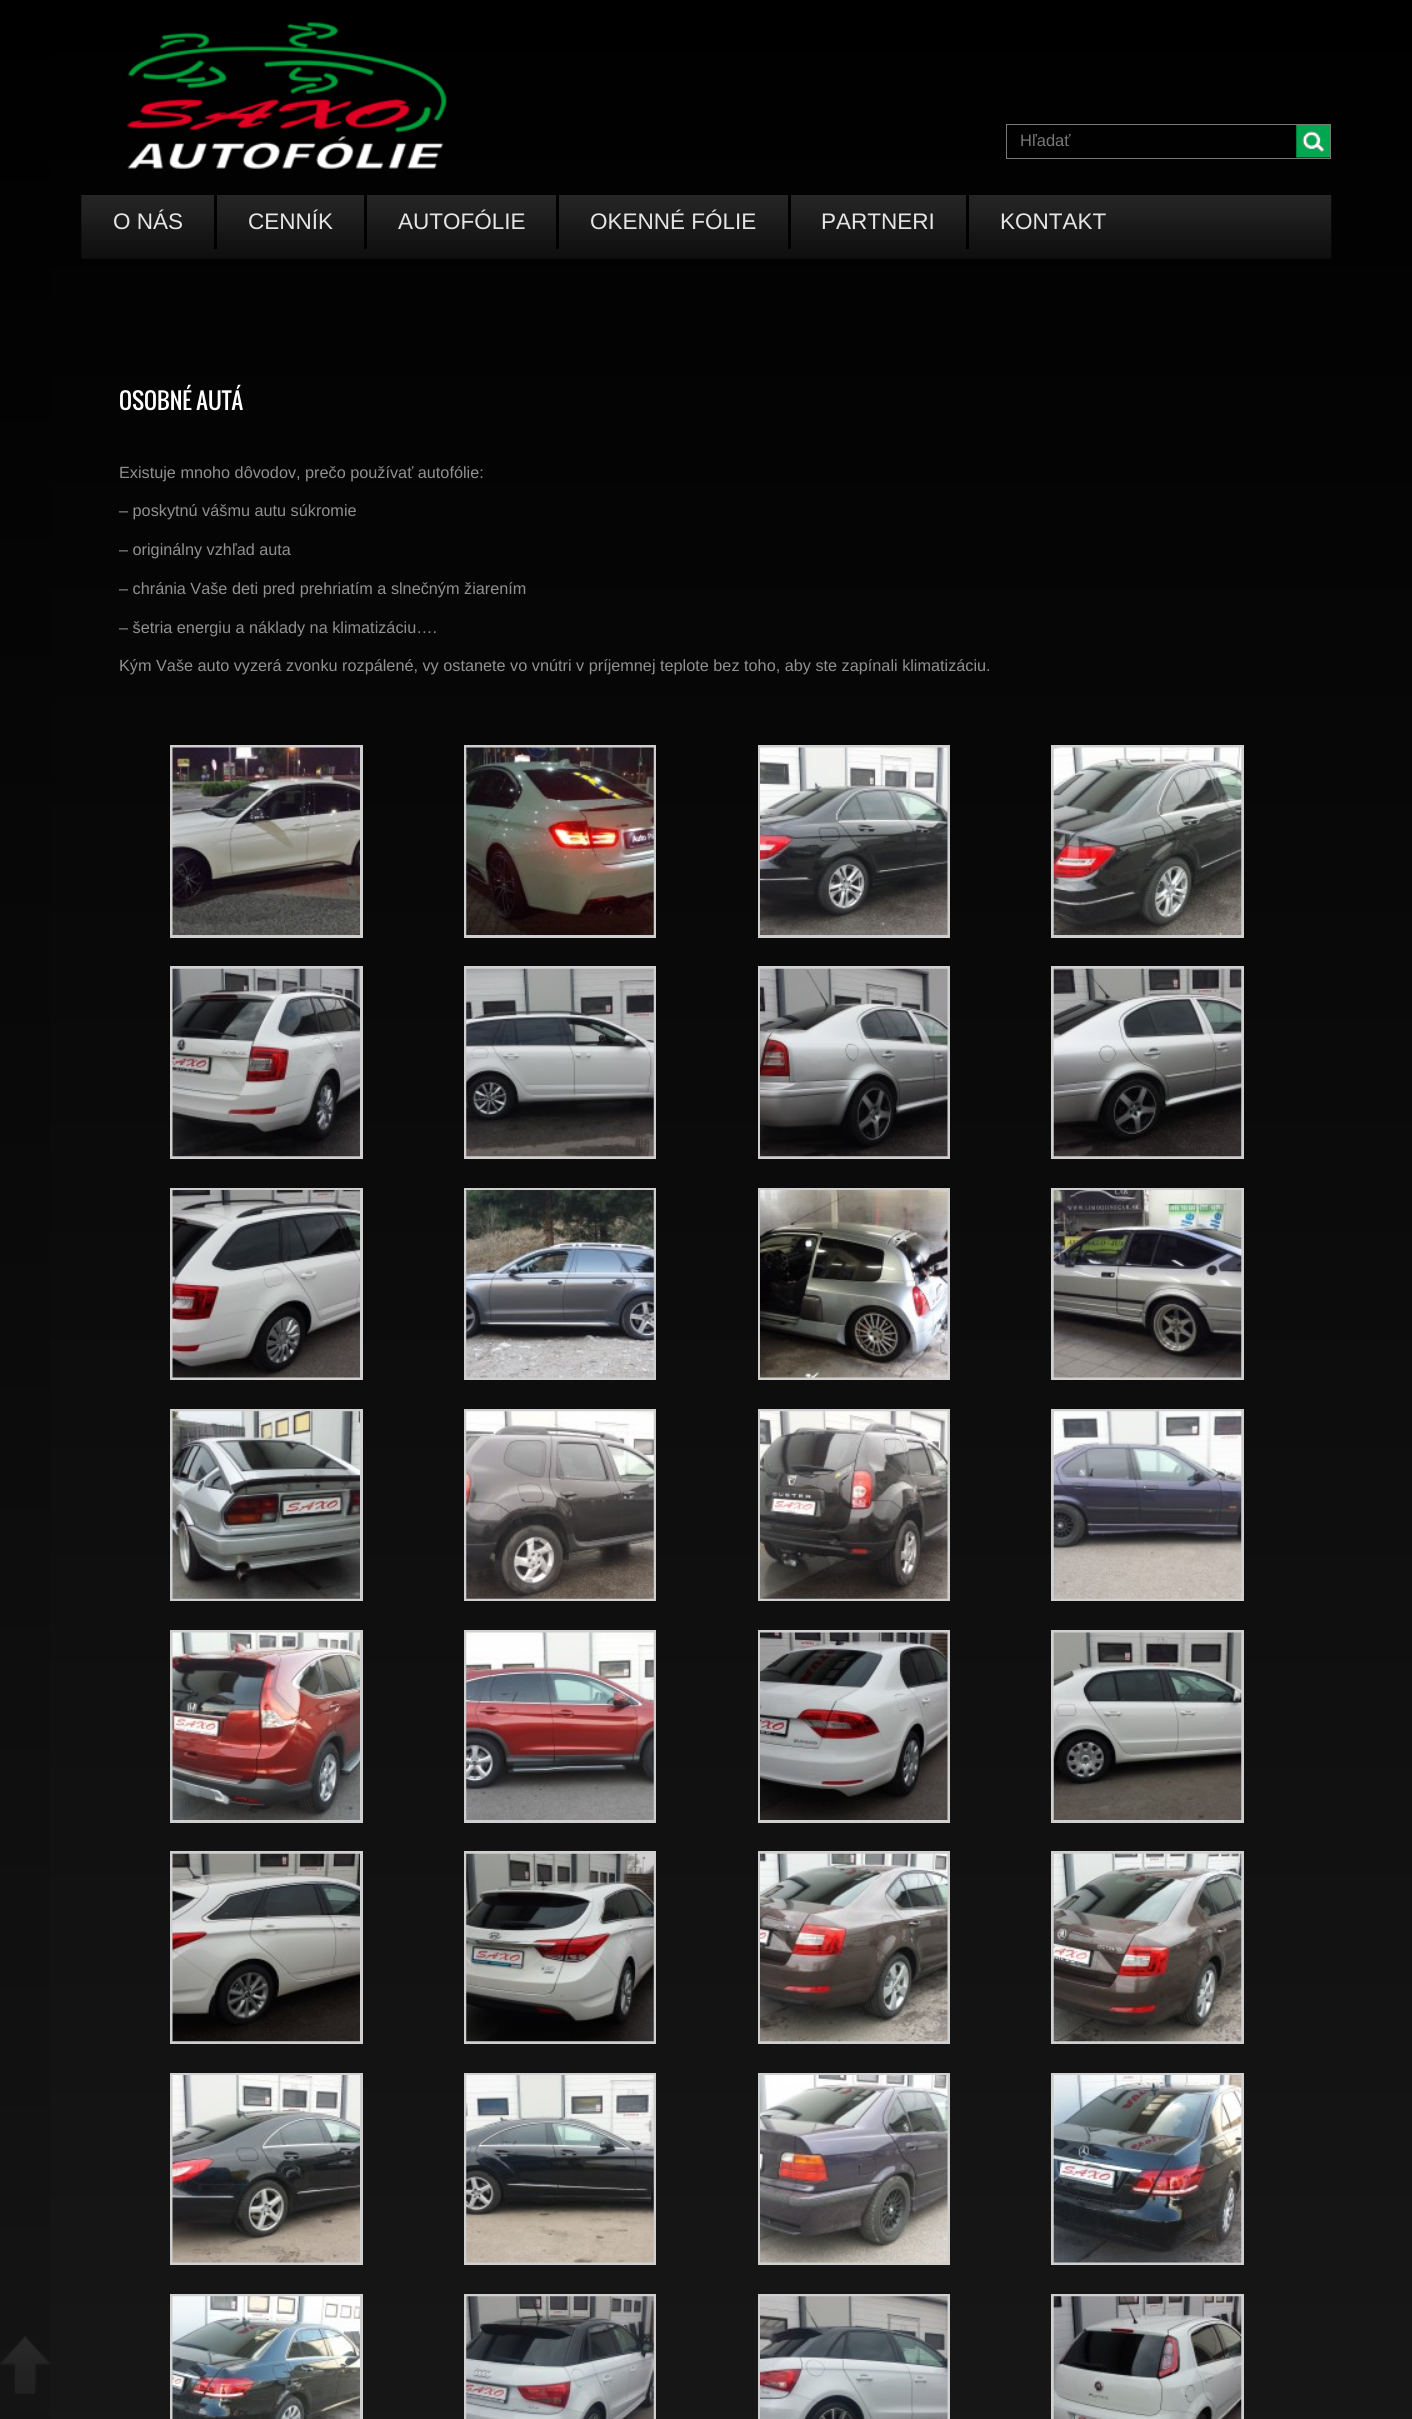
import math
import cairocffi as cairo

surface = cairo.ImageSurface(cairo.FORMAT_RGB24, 1412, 2419)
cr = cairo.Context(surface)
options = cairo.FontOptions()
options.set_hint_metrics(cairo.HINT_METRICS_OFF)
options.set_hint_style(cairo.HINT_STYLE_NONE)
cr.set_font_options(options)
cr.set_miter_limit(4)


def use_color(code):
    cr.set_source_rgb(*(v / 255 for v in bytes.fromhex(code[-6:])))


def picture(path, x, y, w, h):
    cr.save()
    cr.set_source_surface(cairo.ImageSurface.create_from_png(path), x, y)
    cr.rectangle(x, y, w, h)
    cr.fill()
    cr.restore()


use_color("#ffffff")
cr.paint()
gradient = cairo.LinearGradient(706, 0, 706, 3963)
gradient.add_color_stop_rgba(0, 0, 0, 0, 1)
gradient.add_color_stop_rgba(1, 0.145, 0.145, 0.145, 1)
cr.set_source(gradient)
cr.rectangle(50, 0, 1362, 2419)
cr.fill()
gradient = cairo.LinearGradient(706, 0, 706, 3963)
gradient.add_color_stop_rgba(0, 0, 0, 0, 1)
gradient.add_color_stop_rgba(1, 0.129, 0.129, 0.129, 1)
cr.set_source(gradient)
cr.rectangle(0, 0, 50, 2419)
cr.fill()
picture("img1.png", 126, 22, 321, 148)
cr.rectangle(1006.5, 124.5, 324, 34)
use_color("#787878")
cr.set_line_width(1)
cr.stroke()
cr.select_font_face("Liberation Sans")
cr.set_font_size(16.5)
cr.move_to(1020, 146)
cr.show_text("Hľadať")
picture("img2.png", 1296, 125, 34, 33)
picture("img3.png", 81, 195, 1251, 64)
use_color("#000000")
cr.rectangle(214, 195, 3, 54)
cr.fill()
cr.set_font_size(22.5)
use_color("#e5e5e5")
cr.move_to(113, 229)
cr.show_text("O NÁS")
use_color("#000000")
cr.rectangle(364, 195, 3, 54)
cr.fill()
use_color("#e5e5e5")
cr.move_to(248, 229)
cr.show_text("CENNÍK")
use_color("#000000")
cr.rectangle(556, 195, 3, 54)
cr.fill()
use_color("#e5e5e5")
cr.move_to(398, 229)
cr.show_text("AUTOFÓLIE")
use_color("#000000")
cr.rectangle(788, 195, 3, 54)
cr.fill()
use_color("#e5e5e5")
cr.move_to(590, 229)
cr.show_text("OKENNÉ FÓLIE")
use_color("#000000")
cr.rectangle(966, 195, 3, 54)
cr.fill()
use_color("#e5e5e5")
cr.move_to(821, 229)
cr.show_text("PARTNERI")
cr.move_to(1000, 229)
cr.show_text("KONTAKT")
cr.select_font_face("Oswald")
use_color("#ffffff")
cr.move_to(119, 410)
cr.show_text("OSOBNÉ AUTÁ")
cr.select_font_face("Liberation Sans")
cr.set_font_size(16.25)
use_color("#919090")
cr.move_to(119, 478)
cr.show_text("Existuje mnoho dôvodov, prečo používať autofólie:")
cr.move_to(119, 516)
cr.show_text("– poskytnú vášmu autu súkromie")
cr.move_to(119, 555)
cr.show_text("– originálny vzhľad auta")
cr.move_to(119, 594)
cr.show_text("– chránia Vaše deti pred prehriatím a slnečným žiarením")
cr.move_to(119, 633)
cr.show_text("– šetria energiu a náklady na klimatizáciu….")
cr.move_to(119, 671)
cr.show_text("Kým Vaše auto vyzerá zvonku rozpálené, vy ostanete vo vnútri v príjemnej teplote bez toho, aby ste zapínali klimatizáciu.")
cr.rectangle(171.5, 746.5, 190, 190)
use_color("#cfcfcf")
cr.set_line_width(3)
cr.stroke()
picture("img4.png", 172, 747, 188, 188)
cr.rectangle(465.5, 746.5, 189, 190)
cr.stroke()
picture("img5.png", 466, 747, 188, 188)
cr.rectangle(759.5, 746.5, 189, 190)
cr.stroke()
picture("img6.png", 760, 747, 188, 188)
cr.rectangle(1052.5, 746.5, 190, 190)
cr.stroke()
picture("img7.png", 1053, 747, 189, 188)
cr.rectangle(171.5, 967.5, 190, 190)
cr.stroke()
picture("img8.png", 172, 968, 188, 189)
cr.rectangle(465.5, 967.5, 189, 190)
cr.stroke()
picture("img9.png", 466, 968, 188, 189)
cr.rectangle(759.5, 967.5, 189, 190)
cr.stroke()
picture("img10.png", 760, 968, 188, 189)
cr.rectangle(1052.5, 967.5, 190, 190)
cr.stroke()
picture("img11.png", 1053, 968, 189, 189)
cr.rectangle(171.5, 1189.5, 190, 189)
cr.stroke()
picture("img12.png", 172, 1190, 188, 188)
cr.rectangle(465.5, 1189.5, 189, 189)
cr.stroke()
picture("img13.png", 466, 1190, 188, 188)
cr.rectangle(759.5, 1189.5, 189, 189)
cr.stroke()
picture("img14.png", 760, 1190, 188, 188)
cr.rectangle(1052.5, 1189.5, 190, 189)
cr.stroke()
picture("img15.png", 1053, 1190, 189, 188)
cr.rectangle(171.5, 1410.5, 190, 189)
cr.stroke()
picture("img16.png", 172, 1411, 188, 188)
cr.rectangle(465.5, 1410.5, 189, 189)
cr.stroke()
picture("img17.png", 466, 1411, 188, 188)
cr.rectangle(759.5, 1410.5, 189, 189)
cr.stroke()
picture("img18.png", 760, 1411, 188, 188)
cr.rectangle(1052.5, 1410.5, 190, 189)
cr.stroke()
picture("img19.png", 1053, 1411, 189, 188)
cr.rectangle(171.5, 1631.5, 190, 190)
cr.stroke()
picture("img20.png", 172, 1632, 188, 188)
cr.rectangle(465.5, 1631.5, 189, 190)
cr.stroke()
picture("img21.png", 466, 1632, 188, 188)
cr.rectangle(759.5, 1631.5, 189, 190)
cr.stroke()
picture("img22.png", 760, 1632, 188, 188)
cr.rectangle(1052.5, 1631.5, 190, 190)
cr.stroke()
picture("img23.png", 1053, 1632, 189, 188)
cr.rectangle(171.5, 1852.5, 190, 190)
cr.stroke()
picture("img24.png", 172, 1853, 188, 189)
cr.rectangle(465.5, 1852.5, 189, 190)
cr.stroke()
picture("img25.png", 466, 1853, 188, 189)
cr.rectangle(759.5, 1852.5, 189, 190)
cr.stroke()
picture("img26.png", 760, 1853, 188, 189)
cr.rectangle(1052.5, 1852.5, 190, 190)
cr.stroke()
picture("img27.png", 1053, 1853, 189, 189)
cr.rectangle(171.5, 2074.5, 190, 189)
cr.stroke()
picture("img28.png", 172, 2075, 188, 188)
cr.rectangle(465.5, 2074.5, 189, 189)
cr.stroke()
picture("img29.png", 466, 2075, 188, 188)
cr.rectangle(759.5, 2074.5, 189, 189)
cr.stroke()
picture("img30.png", 760, 2075, 188, 188)
cr.rectangle(1052.5, 2074.5, 190, 189)
cr.stroke()
picture("img31.png", 1053, 2075, 189, 188)
cr.rectangle(171.5, 2295.5, 190, 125)
cr.stroke()
picture("img32.png", 172, 2296, 188, 123)
cr.rectangle(465.5, 2295.5, 189, 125)
cr.stroke()
picture("img33.png", 466, 2296, 188, 123)
cr.rectangle(759.5, 2295.5, 189, 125)
cr.stroke()
picture("img34.png", 760, 2296, 188, 123)
cr.rectangle(1052.5, 2295.5, 190, 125)
cr.stroke()
picture("img35.png", 1053, 2296, 189, 123)
picture("img36.png", 0, 2336, 50, 58)
surface.write_to_png("result.png")
